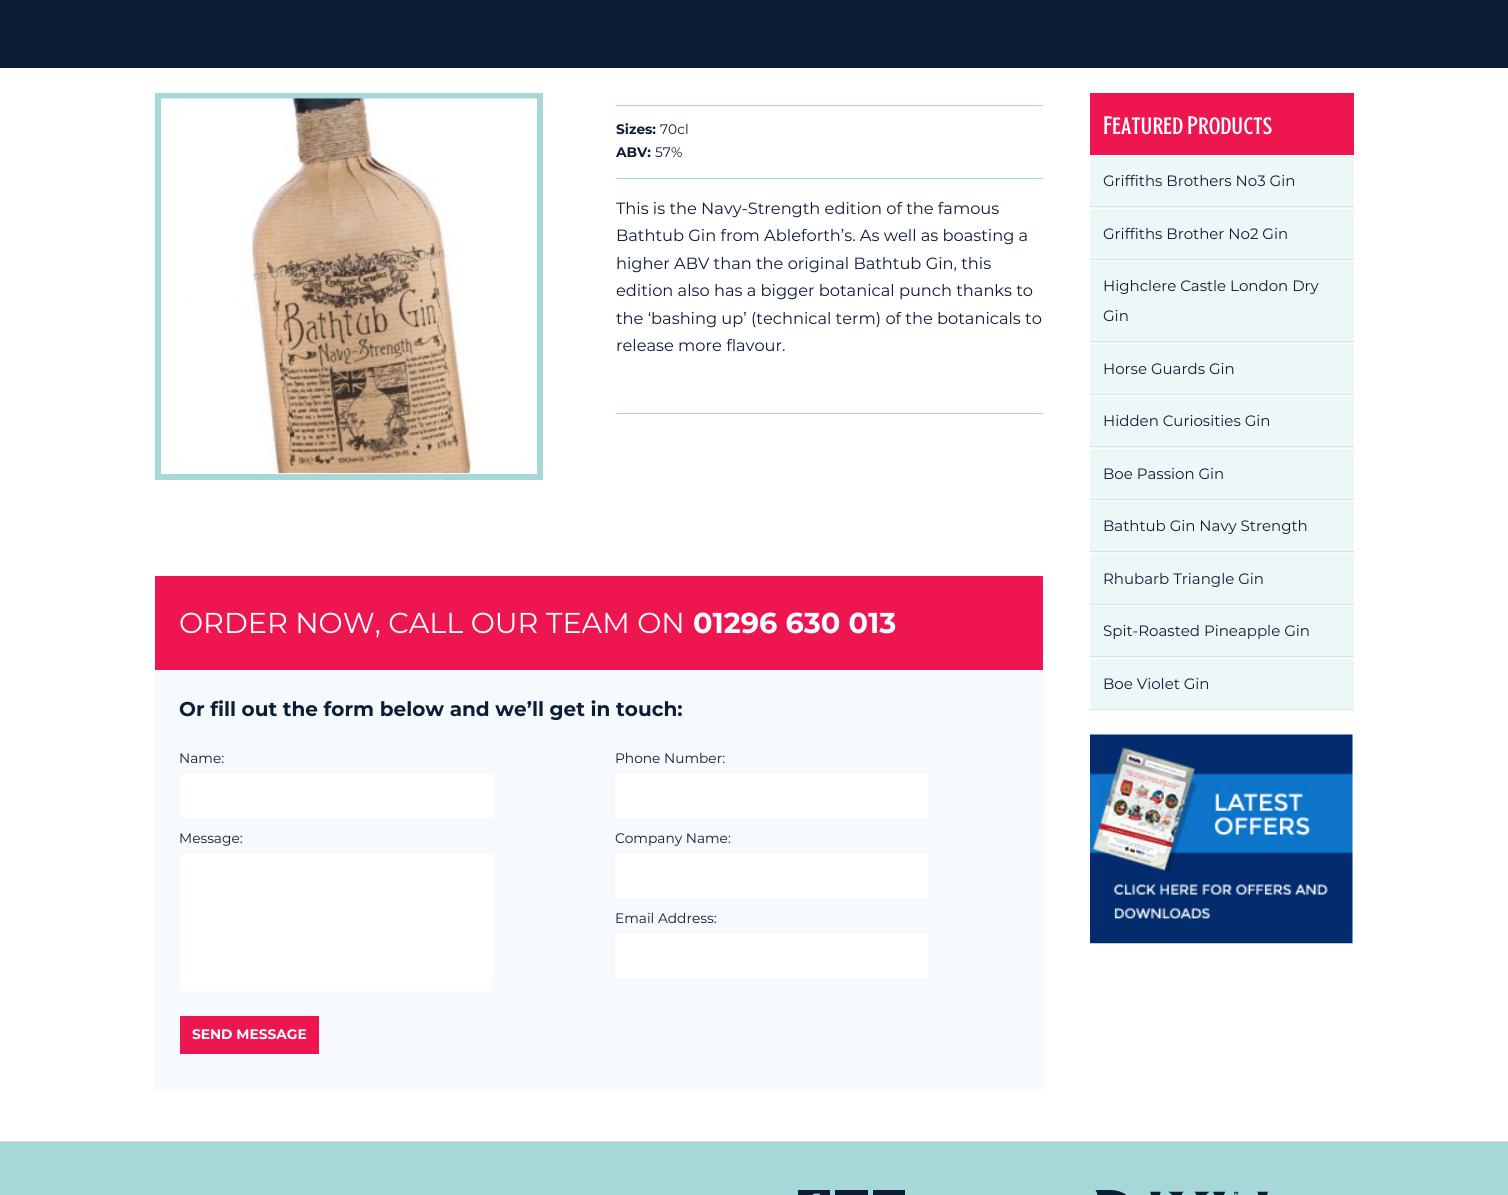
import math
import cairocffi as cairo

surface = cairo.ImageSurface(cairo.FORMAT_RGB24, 1508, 1195)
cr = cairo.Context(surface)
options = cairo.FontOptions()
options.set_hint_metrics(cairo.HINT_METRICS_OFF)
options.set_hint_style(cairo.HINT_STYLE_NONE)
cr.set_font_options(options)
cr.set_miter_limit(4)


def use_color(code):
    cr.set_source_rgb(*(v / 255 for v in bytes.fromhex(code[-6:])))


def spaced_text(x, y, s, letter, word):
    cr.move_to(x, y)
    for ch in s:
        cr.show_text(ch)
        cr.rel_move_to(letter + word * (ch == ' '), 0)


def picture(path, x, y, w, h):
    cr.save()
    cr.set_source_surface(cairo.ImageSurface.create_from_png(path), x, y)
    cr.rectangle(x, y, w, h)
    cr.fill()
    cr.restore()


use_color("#ffffff")
cr.paint()
use_color("#0c1d36")
cr.rectangle(0, 0, 1508, 68)
cr.fill()
cr.rectangle(158, 96, 382, 381)
use_color("#a7d8d8")
cr.set_line_width(6)
cr.stroke()
picture("img1.png", 161, 98, 375, 376)
cr.rectangle(616, 105, 427, 1)
cr.fill()
cr.select_font_face("Montserrat", cairo.FONT_SLANT_NORMAL, cairo.FONT_WEIGHT_BOLD)
cr.set_font_size(13.75)
use_color("#0c1d36")
cr.move_to(616, 134)
cr.show_text("Sizes:")
cr.select_font_face("Montserrat")
cr.move_to(660, 134)
cr.show_text("70cl")
cr.select_font_face("Montserrat", cairo.FONT_SLANT_NORMAL, cairo.FONT_WEIGHT_BOLD)
cr.move_to(616, 157)
cr.show_text("ABV:")
cr.select_font_face("Montserrat")
cr.move_to(655, 157)
cr.show_text("57%")
use_color("#a7d8d8")
cr.rectangle(616, 178, 427, 1)
cr.fill()
cr.set_font_size(16.25)
use_color("#0c1d36")
cr.move_to(616, 214)
cr.show_text("This is the Navy-Strength edition of the famous")
cr.move_to(616, 241)
cr.show_text("Bathtub Gin from Ableforth’s. As well as boasting a")
cr.move_to(616, 269)
cr.show_text("higher ABV than the original Bathtub Gin, this")
cr.move_to(616, 296)
cr.show_text("edition also has a bigger botanical punch thanks to")
cr.move_to(616, 324)
cr.show_text("the ‘bashing up’ (technical term) of the botanicals to")
cr.move_to(616, 351)
cr.show_text("release more flavour.")
use_color("#a7d8d8")
cr.rectangle(616, 413, 427, 1)
cr.fill()
use_color("#ed1650")
cr.rectangle(155, 576, 888, 94)
cr.fill()
cr.set_font_size(28.75)
use_color("#ffffff")
cr.move_to(179, 633)
cr.show_text("ORDER NOW, CALL OUR TEAM ON")
cr.select_font_face("Montserrat", cairo.FONT_SLANT_NORMAL, cairo.FONT_WEIGHT_BOLD)
cr.move_to(693, 633)
cr.show_text("01296 630 013")
use_color("#f6f9fd")
cr.rectangle(155, 670, 888, 421)
cr.fill()
cr.set_font_size(20)
use_color("#0c1d36")
cr.move_to(179, 716)
cr.show_text("Or fill out the form below and we’ll get in touch:")
cr.select_font_face("Montserrat")
cr.set_font_size(13.75)
cr.move_to(179, 763)
cr.show_text("Name:")
use_color("#ffffff")
cr.rectangle(180, 774, 313, 44)
cr.fill()
use_color("#0c1d36")
cr.move_to(179, 843)
cr.show_text("Message:")
use_color("#ffffff")
cr.rectangle(180, 854, 313, 137)
cr.fill()
use_color("#0c1d36")
cr.move_to(615, 763)
cr.show_text("Phone Number:")
use_color("#ffffff")
cr.rectangle(615, 774, 313, 44)
cr.fill()
use_color("#0c1d36")
cr.move_to(615, 843)
cr.show_text("Company Name:")
use_color("#ffffff")
cr.rectangle(615, 854, 313, 44)
cr.fill()
use_color("#0c1d36")
cr.move_to(615, 923)
cr.show_text("Email Address:")
use_color("#ffffff")
cr.rectangle(615, 934, 313, 44)
cr.fill()
use_color("#ed1650")
cr.rectangle(180, 1016, 139, 38)
cr.fill()
cr.select_font_face("Montserrat", cairo.FONT_SLANT_NORMAL, cairo.FONT_WEIGHT_BOLD)
use_color("#ffffff")
cr.move_to(192, 1039)
cr.show_text("SEND MESSAGE")
use_color("#ed1650")
cr.rectangle(1090, 93, 264, 62)
cr.fill()
cr.select_font_face("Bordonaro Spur")
cr.set_font_size(30)
use_color("#ffffff")
spaced_text(1103, 134, "Featured Products", 0.3, 0)
use_color("#eef7f7")
cr.rectangle(1090, 156, 264, 52)
cr.fill()
use_color("#cae8e8")
cr.rectangle(1090, 206, 264, 1)
cr.fill()
cr.select_font_face("Montserrat")
cr.set_font_size(15)
use_color("#0c1d36")
cr.move_to(1103, 186)
cr.show_text("Griffiths Brothers No3 Gin")
use_color("#eef7f7")
cr.rectangle(1090, 209, 264, 50)
cr.fill()
use_color("#cae8e8")
cr.rectangle(1090, 259, 264, 1)
cr.fill()
use_color("#0c1d36")
cr.move_to(1103, 239)
cr.show_text("Griffiths Brother No2 Gin")
use_color("#eef7f7")
cr.rectangle(1090, 261, 264, 82)
cr.fill()
use_color("#cae8e8")
cr.rectangle(1090, 341, 264, 1)
cr.fill()
use_color("#0c1d36")
cr.move_to(1103, 291)
cr.show_text("Highclere Castle London Dry")
cr.move_to(1103, 321)
cr.show_text("Gin")
use_color("#eef7f7")
cr.rectangle(1090, 344, 264, 50)
cr.fill()
use_color("#cae8e8")
cr.rectangle(1090, 394, 264, 1)
cr.fill()
use_color("#0c1d36")
cr.move_to(1103, 374)
cr.show_text("Horse Guards Gin")
use_color("#eef7f7")
cr.rectangle(1090, 396, 264, 52)
cr.fill()
use_color("#cae8e8")
cr.rectangle(1090, 446, 264, 1)
cr.fill()
use_color("#0c1d36")
cr.move_to(1103, 426)
cr.show_text("Hidden Curiosities Gin")
use_color("#eef7f7")
cr.rectangle(1090, 449, 264, 50)
cr.fill()
use_color("#cae8e8")
cr.rectangle(1090, 499, 264, 1)
cr.fill()
use_color("#0c1d36")
cr.move_to(1103, 479)
cr.show_text("Boe Passion Gin")
use_color("#eef7f7")
cr.rectangle(1090, 501, 264, 52)
cr.fill()
use_color("#cae8e8")
cr.rectangle(1090, 551, 264, 1)
cr.fill()
use_color("#0c1d36")
cr.move_to(1103, 531)
cr.show_text("Bathtub Gin Navy Strength")
use_color("#eef7f7")
cr.rectangle(1090, 554, 264, 50)
cr.fill()
use_color("#cae8e8")
cr.rectangle(1090, 604, 264, 1)
cr.fill()
use_color("#0c1d36")
cr.move_to(1103, 584)
cr.show_text("Rhubarb Triangle Gin")
use_color("#eef7f7")
cr.rectangle(1090, 606, 264, 52)
cr.fill()
use_color("#cae8e8")
cr.rectangle(1090, 656, 264, 1)
cr.fill()
use_color("#0c1d36")
cr.move_to(1103, 636)
cr.show_text("Spit-Roasted Pineapple Gin")
use_color("#eef7f7")
cr.rectangle(1090, 659, 264, 50)
cr.fill()
use_color("#cae8e8")
cr.rectangle(1090, 709, 264, 1)
cr.fill()
use_color("#0c1d36")
cr.move_to(1103, 689)
cr.show_text("Boe Violet Gin")
picture("img2.png", 1090, 734, 263, 210)
use_color("#a7d8d8")
cr.rectangle(0, 1142, 1508, 53)
cr.fill()
use_color("#dddddd")
cr.rectangle(0, 1141, 1508, 1)
cr.fill()
use_color("#0c1d36")
cr.rectangle(798, 1190, 32, 5)
cr.fill()
picture("img3.png", 812, 1193, 8, 2)
cr.rectangle(835, 1190, 33, 5)
cr.fill()
cr.rectangle(873, 1190, 32, 5)
cr.fill()
picture("img4.png", 1095, 1190, 174, 5)
surface.write_to_png("result.png")
